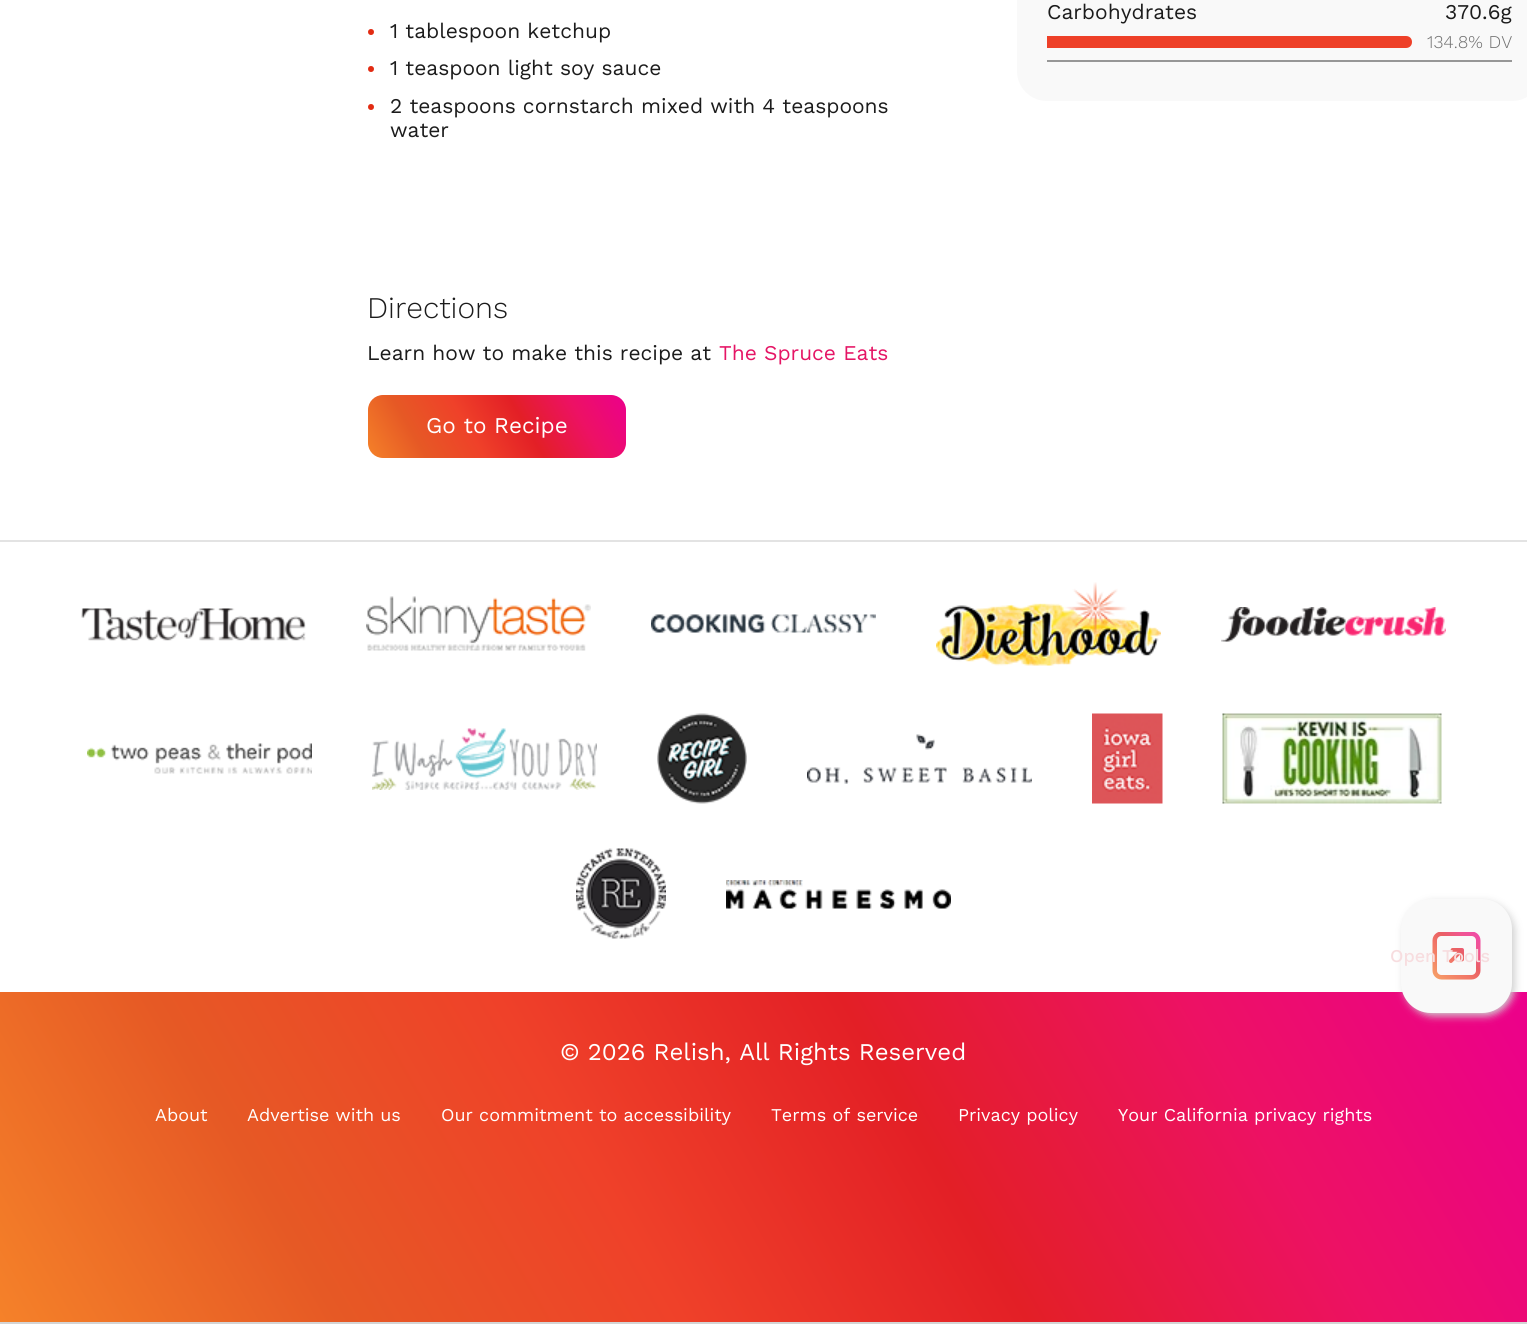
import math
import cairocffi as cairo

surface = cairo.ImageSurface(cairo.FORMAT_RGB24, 1527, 1330)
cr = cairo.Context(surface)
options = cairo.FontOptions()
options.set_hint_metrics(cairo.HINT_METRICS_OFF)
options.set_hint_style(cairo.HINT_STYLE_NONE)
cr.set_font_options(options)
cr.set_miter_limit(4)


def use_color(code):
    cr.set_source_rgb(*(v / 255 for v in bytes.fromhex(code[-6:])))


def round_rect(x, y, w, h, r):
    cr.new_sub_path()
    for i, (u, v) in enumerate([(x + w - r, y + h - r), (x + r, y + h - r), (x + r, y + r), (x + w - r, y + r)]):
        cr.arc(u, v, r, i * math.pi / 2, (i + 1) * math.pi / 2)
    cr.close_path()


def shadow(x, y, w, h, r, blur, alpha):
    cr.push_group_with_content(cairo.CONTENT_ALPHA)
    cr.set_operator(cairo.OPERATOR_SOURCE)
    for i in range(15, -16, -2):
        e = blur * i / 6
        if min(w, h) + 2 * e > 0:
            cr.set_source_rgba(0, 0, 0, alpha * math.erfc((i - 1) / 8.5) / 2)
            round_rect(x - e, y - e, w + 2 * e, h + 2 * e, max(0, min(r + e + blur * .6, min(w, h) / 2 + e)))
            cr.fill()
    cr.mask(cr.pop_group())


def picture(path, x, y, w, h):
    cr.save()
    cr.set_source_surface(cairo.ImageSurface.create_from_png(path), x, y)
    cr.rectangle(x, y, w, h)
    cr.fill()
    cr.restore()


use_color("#ffffff")
cr.paint()
use_color("#e22b12")
cr.arc(371, 32, 3, 0, 2 * math.pi)
cr.fill()
cr.select_font_face("Work Sans")
cr.set_font_size(21)
use_color("#1c1c1c")
cr.move_to(390, 38)
cr.show_text("1 tablespoon ketchup")
use_color("#e22b12")
cr.new_path()
cr.arc(371, 69, 3, 0, 2 * math.pi)
cr.fill()
use_color("#1c1c1c")
cr.move_to(390, 75)
cr.show_text("1 teaspoon light soy sauce")
use_color("#e22b12")
cr.new_path()
cr.arc(371, 107, 3, 0, 2 * math.pi)
cr.fill()
use_color("#1c1c1c")
cr.move_to(390, 113)
cr.show_text("2 teaspoons cornstarch mixed with 4 teaspoons")
cr.move_to(390, 137)
cr.show_text("water")
cr.select_font_face("Work Sans Light")
cr.set_font_size(30)
cr.move_to(367, 318)
cr.show_text("Directions")
cr.select_font_face("Work Sans")
cr.set_font_size(21)
cr.move_to(367, 360)
cr.show_text("Learn how to make this recipe at")
use_color("#e51565")
cr.move_to(719, 360)
cr.show_text("The Spruce Eats")
gradient = cairo.LinearGradient(386, 490, 607, 362)
gradient.add_color_stop_rgba(0, 0.961, 0.51, 0.161, 1)
gradient.add_color_stop_rgba(0.2, 0.902, 0.349, 0.145, 1)
gradient.add_color_stop_rgba(0.4, 0.937, 0.255, 0.161, 1)
gradient.add_color_stop_rgba(0.6, 0.89, 0.122, 0.149, 1)
gradient.add_color_stop_rgba(0.8, 0.929, 0.067, 0.392, 1)
gradient.add_color_stop_rgba(1, 0.925, 0, 0.549, 1)
cr.set_source(gradient)
round_rect(368, 395, 258, 63, 15)
cr.fill()
cr.set_font_size(22.5)
use_color("#ffffff")
cr.move_to(426, 433)
cr.show_text("Go to Recipe")
use_color("#f9f9f9")
round_rect(1017, -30, 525, 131, 30)
cr.fill()
cr.set_font_size(21)
use_color("#1c1c1c")
cr.move_to(1047, 19)
cr.show_text("Carbohydrates")
cr.move_to(1445, 19)
cr.show_text("370.6g")
use_color("#ee4028")
cr.new_path()
cr.move_to(1047, 36)
cr.line_to(1406, 36)
cr.curve_to(1409.5, 36, 1412, 38.5, 1412, 42)
cr.curve_to(1412, 45.5, 1409.5, 48, 1406, 48)
cr.line_to(1047, 48)
cr.close_path()
cr.fill()
cr.select_font_face("Work Sans Light")
cr.set_font_size(18)
use_color("#707070")
cr.move_to(1427, 48)
cr.show_text("134.8% DV")
use_color("#979797")
cr.rectangle(1047, 60, 465, 2)
cr.fill()
use_color("#e3e3e3")
cr.rectangle(0, 540, 1527, 2)
cr.fill()
picture("img1.png", 81, 608, 225, 33)
picture("img2.png", 366, 596, 225, 55)
picture("img3.png", 651, 614, 225, 19)
picture("img4.png", 936, 582, 225, 84)
picture("img5.png", 1221, 607, 225, 35)
picture("img6.png", 87, 743, 225, 31)
picture("img7.png", 372, 728, 225, 62)
picture("img8.png", 657, 713, 90, 91)
picture("img9.png", 807, 734, 225, 50)
picture("img10.png", 1092, 713, 71, 91)
picture("img11.png", 1222, 713, 220, 91)
picture("img12.png", 576, 848, 90, 91)
picture("img13.png", 726, 880, 225, 29)
gradient = cairo.LinearGradient(117, 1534, 1410, 788)
gradient.add_color_stop_rgba(0, 0.961, 0.51, 0.161, 1)
gradient.add_color_stop_rgba(0.2, 0.902, 0.349, 0.145, 1)
gradient.add_color_stop_rgba(0.4, 0.937, 0.255, 0.161, 1)
gradient.add_color_stop_rgba(0.6, 0.89, 0.122, 0.149, 1)
gradient.add_color_stop_rgba(0.8, 0.929, 0.067, 0.392, 1)
gradient.add_color_stop_rgba(1, 0.925, 0, 0.549, 1)
cr.set_source(gradient)
cr.rectangle(0, 992, 1527, 330)
cr.fill()
cr.select_font_face("Work Sans")
cr.set_font_size(24)
use_color("#ffffff")
cr.move_to(560, 1060)
cr.show_text("© 2026 Relish, All Rights Reserved")
cr.set_font_size(18)
cr.move_to(155, 1121)
cr.show_text("About")
cr.move_to(247, 1121)
cr.show_text("Advertise with us")
cr.move_to(441, 1121)
cr.show_text("Our commitment to accessibility")
cr.move_to(771, 1121)
cr.show_text("Terms of service")
cr.move_to(958, 1121)
cr.show_text("Privacy policy")
cr.move_to(1118, 1121)
cr.show_text("Your California privacy rights")
use_color("#d0d0d0")
shadow(1404, 902, 111, 114, 30, 4, 1)
use_color("#f9f9f9")
round_rect(1401, 899, 111, 114, 30)
cr.fill()
picture("img14.png", 1432, 932, 49, 48)
cr.select_font_face("Work Sans Medium")
use_color("#f7dddf")
cr.move_to(1390, 962)
cr.show_text("Open Tools")
use_color("#d4d4d4")
cr.rectangle(0, 1322, 1527, 2)
cr.fill()
surface.write_to_png("result.png")
